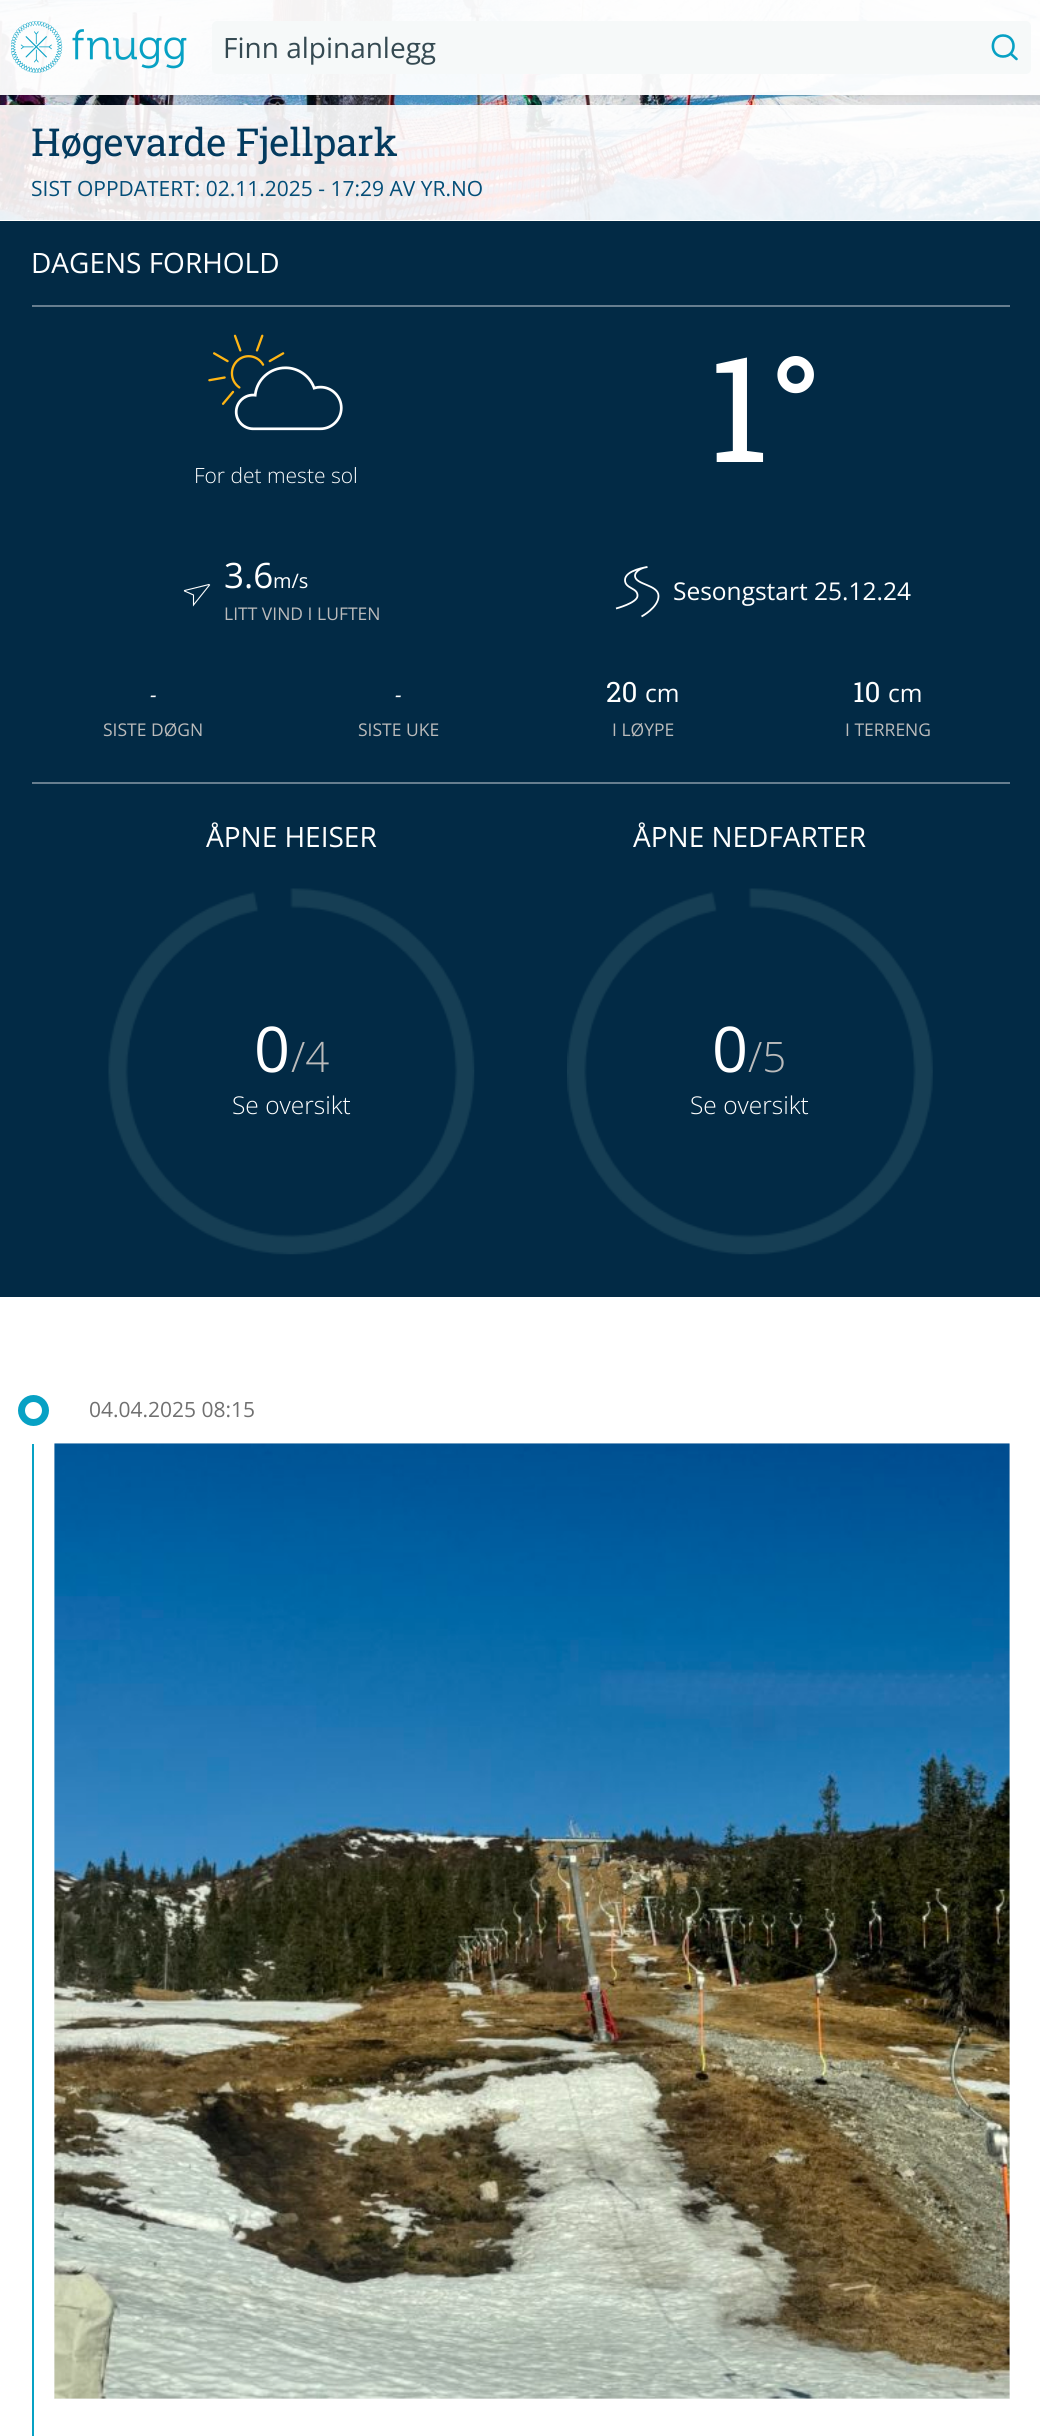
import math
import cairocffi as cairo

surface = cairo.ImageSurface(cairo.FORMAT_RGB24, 1040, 2436)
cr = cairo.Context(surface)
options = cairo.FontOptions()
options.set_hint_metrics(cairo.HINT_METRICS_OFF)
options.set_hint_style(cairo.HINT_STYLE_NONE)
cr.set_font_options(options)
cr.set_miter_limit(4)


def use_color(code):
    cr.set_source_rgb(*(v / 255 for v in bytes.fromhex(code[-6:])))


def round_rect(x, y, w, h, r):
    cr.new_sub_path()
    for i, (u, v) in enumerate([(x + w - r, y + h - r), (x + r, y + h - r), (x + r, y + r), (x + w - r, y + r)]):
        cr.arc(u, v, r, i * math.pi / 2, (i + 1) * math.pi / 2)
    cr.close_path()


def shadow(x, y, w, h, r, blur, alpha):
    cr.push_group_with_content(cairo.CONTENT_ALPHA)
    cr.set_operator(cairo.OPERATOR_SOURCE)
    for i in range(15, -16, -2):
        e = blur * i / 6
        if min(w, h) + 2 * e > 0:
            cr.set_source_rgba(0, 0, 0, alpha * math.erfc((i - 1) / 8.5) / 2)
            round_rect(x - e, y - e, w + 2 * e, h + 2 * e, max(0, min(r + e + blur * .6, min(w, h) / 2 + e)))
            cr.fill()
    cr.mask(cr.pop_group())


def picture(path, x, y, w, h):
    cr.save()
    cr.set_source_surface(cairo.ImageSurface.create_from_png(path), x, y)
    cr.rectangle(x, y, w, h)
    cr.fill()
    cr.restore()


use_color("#ffffff")
cr.paint()
picture("img2.png", 0, 0, 1040, 220)
cr.set_source_rgba(1, 1, 1, 0.9)
cr.rectangle(0, 105, 1040, 115)
cr.fill()
cr.save()
cr.set_fill_rule(cairo.FILL_RULE_EVEN_ODD)
cr.new_path()
cr.move_to(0, 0)
cr.line_to(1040, 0)
cr.line_to(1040, 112)
cr.line_to(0, 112)
cr.close_path()
cr.move_to(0, 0)
cr.line_to(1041, 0)
cr.line_to(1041, 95)
cr.line_to(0, 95)
cr.close_path()
cr.clip()
use_color("#000000")
shadow(0, 2, 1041, 94, 0, 5, 0.1)
cr.restore()
cr.set_source_rgba(1, 1, 1, 0.95)
cr.rectangle(0, 0, 1040, 95)
cr.fill()
picture("img1.png", 11, 21, 176, 52)
use_color("#f6f9f9")
round_rect(212, 21, 819, 53, 5)
cr.fill()
cr.new_path()
cr.move_to(1003, 56.5)
cr.curve_to(1017, 56.5, 1017, 35.5, 1003, 35.5)
cr.curve_to(989.5, 35.5, 989.5, 56.5, 1003, 56.5)
cr.close_path()
cr.move_to(1016.5, 59)
cr.line_to(1010.5, 53.5)
use_color("#07a1c4")
cr.set_line_width(2.6)
cr.set_line_cap(cairo.LINE_CAP_ROUND)
cr.set_line_join(cairo.LINE_JOIN_ROUND)
cr.stroke()
cr.select_font_face("Open Sans")
cr.set_font_size(28)
use_color("#354a52")
cr.move_to(223, 58)
cr.show_text("Finn alpinanlegg")
cr.select_font_face("Roboto Slab")
cr.set_font_size(38.5)
use_color("#033a5e")
cr.move_to(31, 156)
cr.show_text("Høgevarde Fjellpark")
cr.select_font_face("Open Sans")
cr.set_font_size(21)
use_color("#044e78")
cr.move_to(31, 196)
cr.show_text("SIST OPPDATERT: 02.11.2025 - 17:29 AV YR.NO")
use_color("#022a45")
cr.rectangle(0, 221, 1040, 1076)
cr.fill()
use_color("#677e8f")
cr.rectangle(32, 305, 978, 2)
cr.fill()
cr.set_font_size(28)
use_color("#ffffff")
cr.move_to(31, 273)
cr.show_text("DAGENS FORHOLD")
use_color("#677e8f")
cr.rectangle(32, 782, 978, 2)
cr.fill()
cr.select_font_face("Roboto Slab")
cr.set_font_size(147)
use_color("#ffffff")
cr.move_to(708, 462)
cr.show_text("1°")
picture("img3.png", 208, 334, 135, 97)
cr.select_font_face("Open Sans Light")
cr.set_font_size(21)
cr.move_to(194, 483)
cr.show_text("For det meste sol")
cr.select_font_face("Open Sans")
cr.set_font_size(35)
cr.move_to(224, 588)
cr.show_text("3.6")
cr.set_font_size(20)
cr.move_to(273, 588)
cr.show_text("m/s")
cr.new_path()
cr.move_to(209.5, 585)
cr.line_to(209, 584.5)
cr.line_to(184.5, 590.5)
cr.line_to(184.5, 591)
cr.line_to(193.5, 595)
cr.line_to(193.5, 605)
cr.close_path()
cr.set_line_width(1.1)
cr.set_line_cap(cairo.LINE_CAP_BUTT)
cr.set_line_join(cairo.LINE_JOIN_MITER)
cr.stroke()
cr.set_font_size(17.5)
use_color("#bbbbbb")
cr.move_to(224, 620)
cr.show_text("LITT VIND I LUFTEN")
cr.new_path()
cr.move_to(647.5, 567)
cr.curve_to(647.5, 567, 625, 570, 625, 580)
cr.curve_to(625, 589, 638, 587.5, 637.5, 596)
cr.curve_to(637, 603, 616, 608.5, 616, 608.5)
cr.move_to(647, 567)
cr.curve_to(643, 567.5, 635, 570.5, 635, 576)
cr.curve_to(635.5, 585, 658.5, 584.5, 658.5, 596)
cr.curve_to(658.5, 607.5, 641.5, 616.5, 641.5, 616.5)
use_color("#ffffff")
cr.set_line_width(1.8)
cr.stroke()
cr.set_font_size(24.5)
cr.move_to(673, 600)
cr.show_text("Sesongstart 25.12.24")
cr.select_font_face("Open Sans", cairo.FONT_SLANT_ITALIC)
cr.set_font_size(21)
cr.move_to(150, 702)
cr.show_text("-")
cr.move_to(395, 702)
cr.show_text("-")
cr.select_font_face("Roboto Slab")
cr.set_font_size(28)
cr.move_to(606, 702)
cr.show_text("20")
cr.select_font_face("Open Sans")
cr.set_font_size(24.5)
cr.move_to(645, 702)
cr.show_text("cm")
cr.select_font_face("Roboto Slab")
cr.set_font_size(28)
cr.move_to(853, 702)
cr.show_text("10")
cr.select_font_face("Open Sans")
cr.set_font_size(24.5)
cr.move_to(888, 702)
cr.show_text("cm")
cr.set_font_size(17.5)
use_color("#bbbbbb")
cr.move_to(103, 736)
cr.show_text("SISTE DØGN")
cr.move_to(358, 736)
cr.show_text("SISTE UKE")
cr.move_to(612, 736)
cr.show_text("I LØYPE")
cr.move_to(845, 736)
cr.show_text("I TERRENG")
cr.set_font_size(28)
use_color("#ffffff")
cr.move_to(206, 847)
cr.show_text("ÅPNE HEISER")
picture("img4.png", 108, 888, 367, 367)
cr.set_font_size(63)
cr.move_to(254, 1072)
cr.show_text("0")
cr.select_font_face("Open Sans Light")
cr.set_font_size(42)
use_color("#bbbbbb")
cr.move_to(291, 1072)
cr.show_text("/4")
cr.set_font_size(24.5)
use_color("#ffffff")
cr.move_to(232, 1114)
cr.show_text("Se oversikt")
cr.select_font_face("Open Sans")
cr.set_font_size(28)
cr.move_to(633, 847)
cr.show_text("ÅPNE NEDFARTER")
picture("img5.png", 567, 888, 366, 367)
cr.set_font_size(63)
cr.move_to(712, 1072)
cr.show_text("0")
cr.select_font_face("Open Sans Light")
cr.set_font_size(42)
use_color("#bbbbbb")
cr.move_to(748, 1072)
cr.show_text("/5")
cr.set_font_size(24.5)
use_color("#ffffff")
cr.move_to(690, 1114)
cr.show_text("Se oversikt")
use_color("#07a1c4")
cr.rectangle(32, 1444, 2, 992)
cr.fill()
cr.arc(33.5, 1410.5, 12, 0, 2 * math.pi)
cr.set_line_width(7)
cr.stroke()
cr.select_font_face("Open Sans")
cr.set_font_size(21)
use_color("#707070")
cr.move_to(89, 1417)
cr.show_text("04.04.2025 08:15")
use_color("#f3f3f3")
cr.rectangle(54, 1444, 956, 955)
cr.fill()
picture("img6.png", 54, 1443, 956, 956)
surface.write_to_png("result.png")
